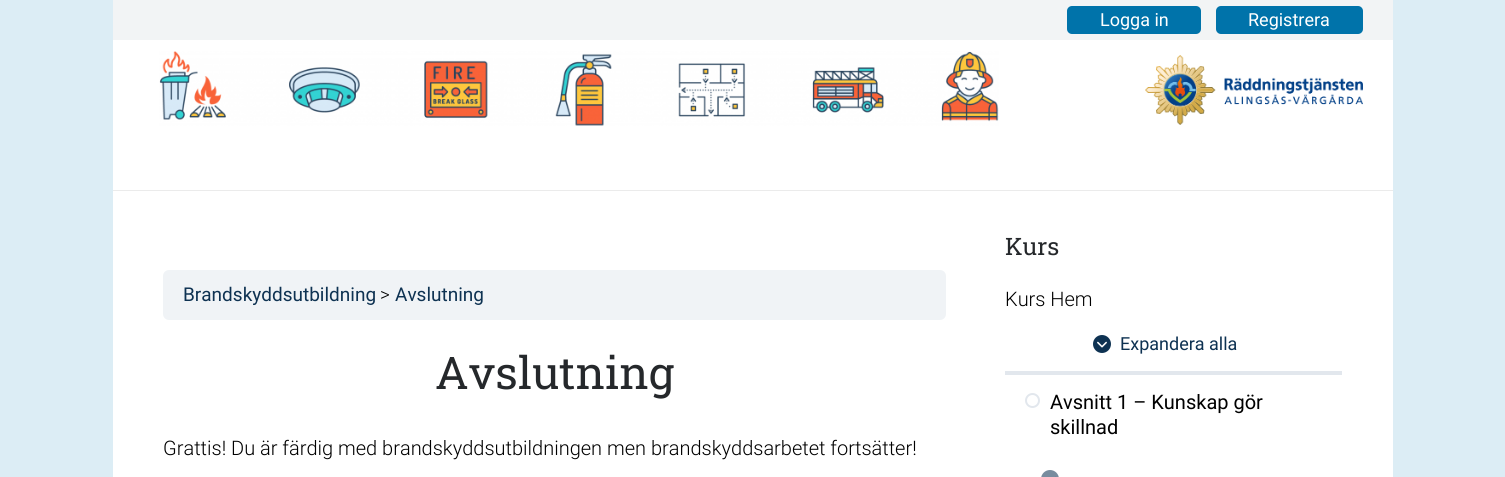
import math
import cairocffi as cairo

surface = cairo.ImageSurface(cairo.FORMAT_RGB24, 1505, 477)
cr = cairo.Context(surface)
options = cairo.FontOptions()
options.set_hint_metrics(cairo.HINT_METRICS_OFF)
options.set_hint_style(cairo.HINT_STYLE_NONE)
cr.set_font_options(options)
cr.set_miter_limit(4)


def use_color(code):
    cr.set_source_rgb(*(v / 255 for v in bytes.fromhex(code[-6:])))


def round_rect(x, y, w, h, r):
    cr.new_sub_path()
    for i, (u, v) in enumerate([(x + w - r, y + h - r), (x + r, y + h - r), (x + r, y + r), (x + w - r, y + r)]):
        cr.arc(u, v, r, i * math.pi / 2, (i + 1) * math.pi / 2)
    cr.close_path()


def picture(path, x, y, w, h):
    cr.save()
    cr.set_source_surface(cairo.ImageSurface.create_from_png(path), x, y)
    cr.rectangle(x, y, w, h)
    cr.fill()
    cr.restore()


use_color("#dcedf5")
cr.paint()
use_color("#ffffff")
cr.rectangle(113, 40, 1280, 437)
cr.fill()
use_color("#f2f4f5")
cr.rectangle(113, 0, 1280, 40)
cr.fill()
use_color("#0073aa")
round_rect(1067, 6, 134, 28, 5)
cr.fill()
cr.select_font_face("Roboto")
cr.set_font_size(18)
use_color("#ffffff")
cr.move_to(1100, 26)
cr.show_text("Logga in")
use_color("#0073aa")
round_rect(1216, 6, 147, 28, 5)
cr.fill()
use_color("#ffffff")
cr.move_to(1248, 26)
cr.show_text("Registrera")
picture("img1.png", 159, 51, 840, 75)
picture("img2.png", 1145, 55, 218, 70)
use_color("#ebebeb")
cr.rectangle(113, 190, 1280, 1)
cr.fill()
use_color("#f0f3f6")
round_rect(163, 270, 783, 50, 6)
cr.fill()
cr.set_font_size(19)
use_color("#0e3252")
cr.move_to(183, 301)
cr.show_text("Brandskyddsutbildning")
cr.select_font_face("Roboto Light")
use_color("#000000")
cr.move_to(380, 301)
cr.show_text(">")
cr.select_font_face("Roboto")
use_color("#0e3252")
cr.move_to(395, 301)
cr.show_text("Avslutning")
cr.select_font_face("Roboto Slab")
cr.set_font_size(45)
use_color("#25282b")
cr.move_to(435, 389)
cr.show_text("Avslutning")
cr.select_font_face("Roboto Light")
cr.set_font_size(20)
use_color("#000000")
cr.move_to(163, 455)
cr.show_text("Grattis! Du är färdig med brandskyddsutbildningen men brandskyddsarbetet fortsätter!")
cr.select_font_face("Roboto Slab")
cr.set_font_size(24)
use_color("#25282b")
cr.move_to(1005, 255)
cr.show_text("Kurs")
use_color("#e2e7ed")
cr.rectangle(1005, 371, 337, 4)
cr.fill()
cr.select_font_face("Roboto Light")
cr.set_font_size(20)
use_color("#000000")
cr.move_to(1005, 306)
cr.show_text("Kurs Hem")
use_color("#0e3252")
cr.new_path()
cr.arc(1102, 344, 9, 0, 2 * math.pi)
cr.fill()
picture("img3.png", 1097, 341, 10, 7)
cr.select_font_face("Roboto")
cr.set_font_size(18)
cr.move_to(1120, 350)
cr.show_text("Expandera alla")
cr.new_path()
cr.arc(1032.5, 400.5, 6.5, 0, 2 * math.pi)
use_color("#e2e7ed")
cr.stroke()
cr.set_font_size(20)
use_color("#000000")
cr.move_to(1050, 409)
cr.show_text("Avsnitt 1 – Kunskap gör")
cr.move_to(1050, 434)
cr.show_text("skillnad")
use_color("#778c9e")
round_rect(1041, 470, 18, 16, 9)
cr.fill()
use_color("#72889a")
cr.rectangle(1055, 476, 1, 1)
cr.fill()
surface.write_to_png("result.png")
